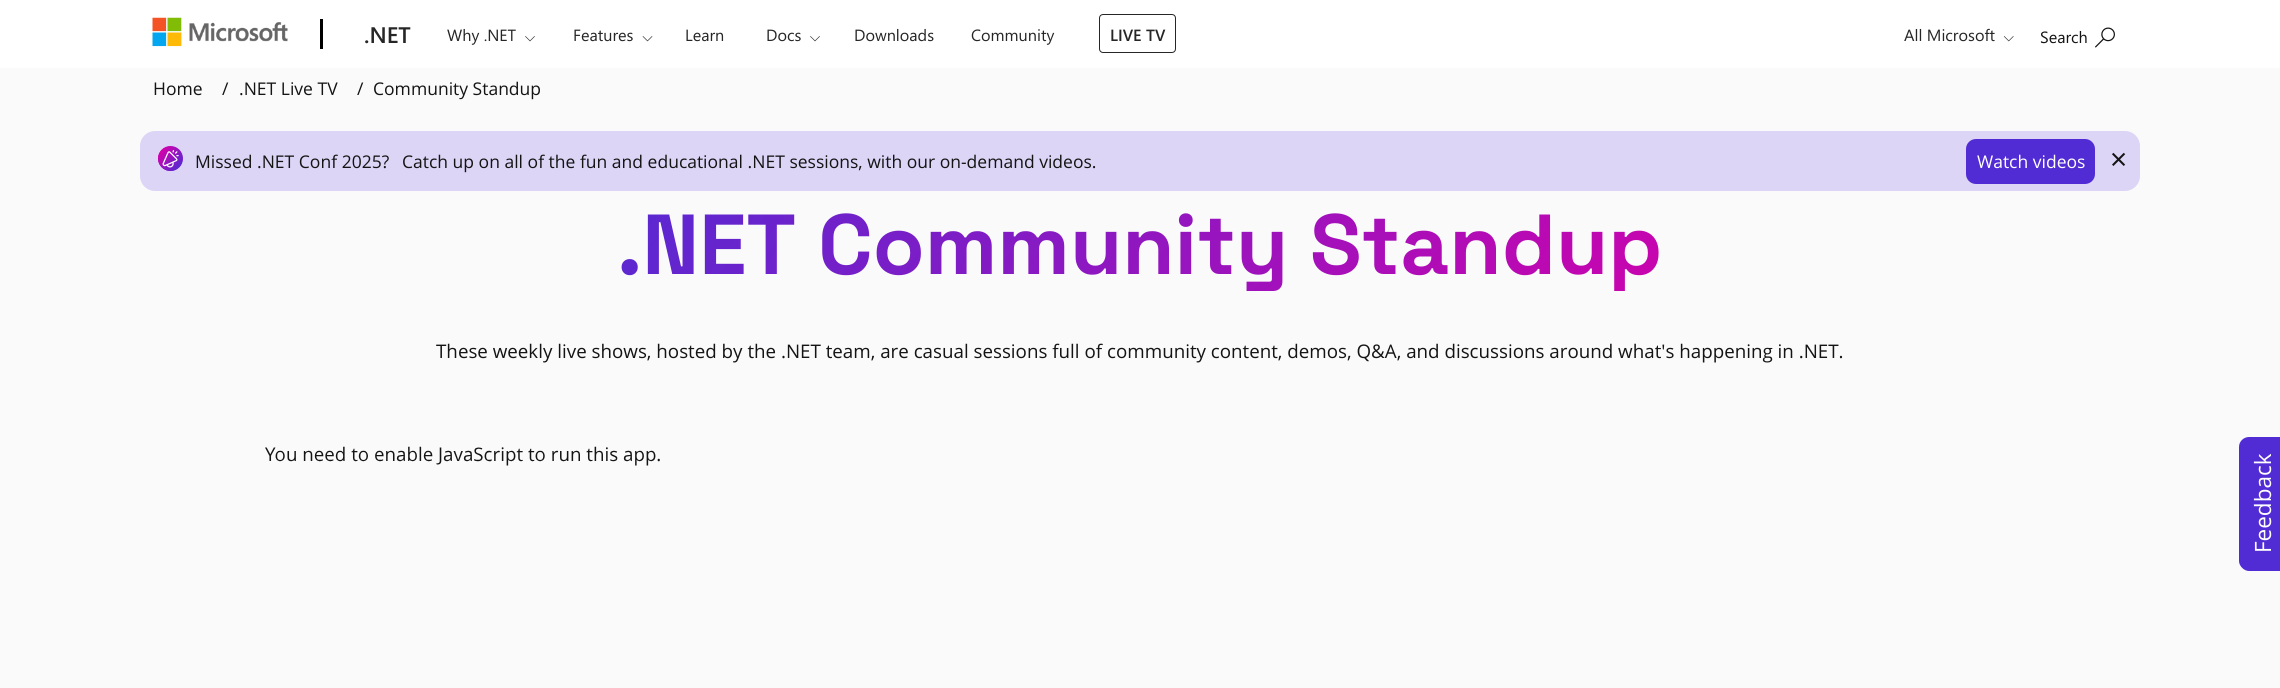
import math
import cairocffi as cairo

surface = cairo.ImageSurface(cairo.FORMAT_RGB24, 2280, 688)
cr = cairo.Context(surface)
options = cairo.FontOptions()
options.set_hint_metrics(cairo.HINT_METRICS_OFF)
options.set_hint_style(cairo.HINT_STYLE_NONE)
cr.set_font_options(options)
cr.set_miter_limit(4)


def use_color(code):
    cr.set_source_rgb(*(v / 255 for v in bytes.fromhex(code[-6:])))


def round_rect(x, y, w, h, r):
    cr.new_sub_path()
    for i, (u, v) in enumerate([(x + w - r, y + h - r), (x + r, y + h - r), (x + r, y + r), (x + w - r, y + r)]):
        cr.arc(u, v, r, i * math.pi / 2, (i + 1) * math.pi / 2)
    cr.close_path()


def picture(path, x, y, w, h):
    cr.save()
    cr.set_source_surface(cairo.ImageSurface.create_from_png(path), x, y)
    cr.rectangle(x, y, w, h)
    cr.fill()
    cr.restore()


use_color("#fafafa")
cr.paint()
use_color("#ffffff")
cr.rectangle(0, 0, 2280, 68)
cr.fill()
picture("img1.png", 152, 17, 136, 30)
use_color("#000000")
cr.rectangle(320, 19, 3, 30)
cr.fill()
cr.select_font_face("Segoe UI SemiBold")
cr.set_font_size(22.5)
use_color("#262626")
cr.move_to(364, 43)
cr.show_text(".NET")
cr.select_font_face("Segoe UI")
cr.set_font_size(16.25)
cr.move_to(447, 41)
cr.show_text("Why .NET")
picture("img2.png", 525, 36, 10, 6)
cr.move_to(573, 41)
cr.show_text("Features")
picture("img3.png", 642, 36, 11, 6)
cr.move_to(685, 41)
cr.show_text("Learn")
cr.move_to(766, 41)
cr.show_text("Docs")
picture("img2.png", 810, 36, 10, 6)
cr.move_to(854, 41)
cr.show_text("Downloads")
cr.move_to(971, 41)
cr.show_text("Community")
round_rect(1099.5, 14.5, 76, 38, 3.5)
cr.set_line_width(1)
cr.stroke()
cr.select_font_face("Segoe UI SemiBold")
cr.move_to(1110, 41)
cr.show_text("LIVE TV")
cr.select_font_face("Segoe UI")
cr.move_to(1904, 41)
cr.show_text("All Microsoft")
picture("img4.png", 2003, 36, 11, 6)
use_color("#141414")
cr.move_to(2040, 43)
cr.show_text("Search")
picture("img5.png", 2095, 27, 20, 21)
cr.select_font_face("Open Sans")
cr.set_font_size(17.5)
cr.move_to(153, 95)
cr.show_text("Home")
cr.move_to(222, 95)
cr.show_text("/")
cr.move_to(239, 95)
cr.show_text(".NET Live TV")
cr.move_to(357, 95)
cr.show_text("/")
cr.move_to(373, 95)
cr.show_text("Community Standup")
use_color("#dcd5f6")
round_rect(140, 131, 2000, 60, 15)
cr.fill()
gradient = cairo.LinearGradient(158, 146, 183, 171)
gradient.add_color_stop_rgba(0, 0.839, 0, 0.667, 1)
gradient.add_color_stop_rgba(1, 0.318, 0.169, 0.831, 1)
cr.set_source(gradient)
cr.arc(170.5, 158.5, 12.5, 0, 2 * math.pi)
cr.fill()
picture("img6.png", 158, 146, 25, 25)
use_color("#141414")
cr.move_to(195, 168)
cr.show_text("Missed .NET Conf 2025?")
cr.move_to(402, 168)
cr.show_text("Catch up on all of the fun and educational .NET sessions, with our on-demand videos.")
use_color("#512bd4")
round_rect(1966, 139, 129, 45, 10)
cr.fill()
use_color("#ffffff")
cr.move_to(1977, 168)
cr.show_text("Watch videos")
cr.set_font_size(30)
use_color("#141414")
cr.move_to(2110, 170)
cr.show_text("×")
cr.select_font_face("Space Grotesk Light")
cr.set_font_size(85)
gradient = cairo.LinearGradient(610, -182, 1670, 672)
gradient.add_color_stop_rgba(0.14, 0.318, 0.169, 0.831, 1)
gradient.add_color_stop_rgba(0.89, 0.839, 0, 0.667, 1)
cr.set_source(gradient)
cr.move_to(617, 274)
cr.show_text(".NET Community Standup")
cr.select_font_face("Open Sans")
cr.set_font_size(18.75)
use_color("#141414")
cr.move_to(436, 358)
cr.show_text("These weekly live shows, hosted by the .NET team, are casual sessions full of community content, demos, Q&A, and discussions around what's happening in .NET.")
picture("img7.png", 265, 446, 395, 20)
use_color("#512bd4")
cr.new_path()
cr.move_to(2239, 561)
cr.line_to(2239, 447)
cr.curve_to(2239, 441, 2244, 437, 2249, 437)
cr.line_to(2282, 437)
cr.curve_to(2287, 437, 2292, 441, 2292, 447)
cr.line_to(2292, 561)
cr.curve_to(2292, 566, 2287, 571, 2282, 571)
cr.line_to(2249, 571)
cr.curve_to(2244, 571, 2239, 566, 2239, 561)
cr.close_path()
cr.fill()
cr.set_font_size(22.5)
use_color("#ffffff")
cr.save()
cr.translate(2271, 553)
cr.rotate(-90 * math.pi / 180)
cr.move_to(0, 0)
cr.show_text("Feedback")
cr.restore()
surface.write_to_png("result.png")
